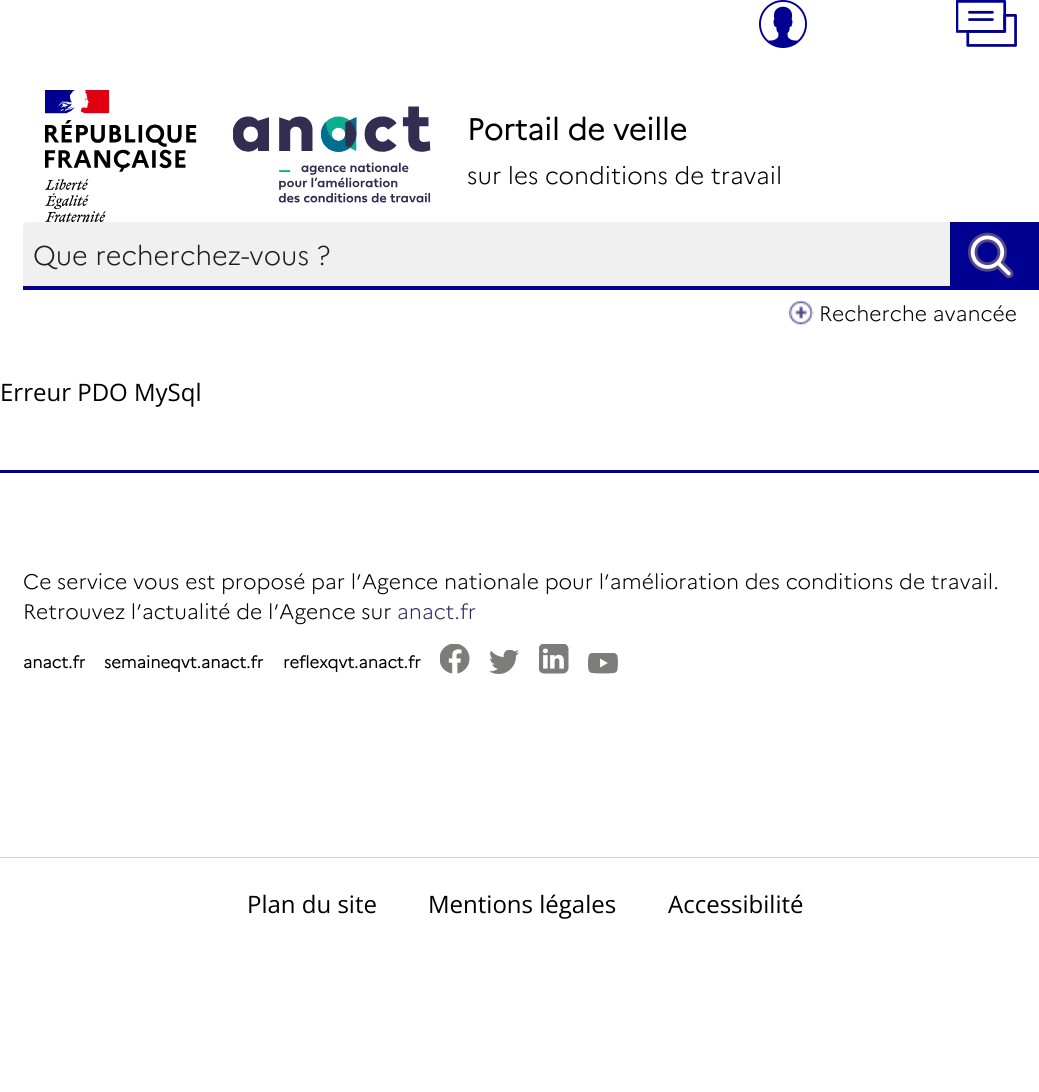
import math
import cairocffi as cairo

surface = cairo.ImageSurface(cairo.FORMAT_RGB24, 1039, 1092)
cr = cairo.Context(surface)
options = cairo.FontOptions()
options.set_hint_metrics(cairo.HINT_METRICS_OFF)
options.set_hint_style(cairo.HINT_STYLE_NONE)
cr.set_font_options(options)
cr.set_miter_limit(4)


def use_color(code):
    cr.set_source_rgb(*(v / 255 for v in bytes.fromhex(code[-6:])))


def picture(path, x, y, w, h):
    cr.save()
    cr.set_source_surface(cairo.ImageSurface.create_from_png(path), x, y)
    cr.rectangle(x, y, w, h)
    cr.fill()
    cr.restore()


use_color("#ffffff")
cr.paint()
picture("img1.png", 759, 0, 48, 48)
picture("img2.png", 956, 0, 61, 47)
picture("img3.png", 45, 90, 152, 132)
picture("img4.png", 233, 106, 198, 97)
cr.select_font_face("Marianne", cairo.FONT_SLANT_NORMAL, cairo.FONT_WEIGHT_BOLD)
cr.set_font_size(30)
use_color("#000000")
cr.move_to(467, 140)
cr.show_text("Portail de veille")
cr.select_font_face("Marianne Light")
cr.set_font_size(24)
cr.move_to(467, 184)
cr.show_text("sur les conditions de travail")
use_color("#f0f0f0")
cr.new_path()
cr.move_to(27, 222)
cr.line_to(951, 222)
cr.line_to(951, 290)
cr.line_to(23, 290)
cr.line_to(23, 226)
cr.curve_to(23, 224, 25, 222, 27, 222)
cr.close_path()
cr.fill()
use_color("#000091")
cr.rectangle(23, 286, 928, 4)
cr.fill()
cr.set_font_size(27)
use_color("#1e1e1e")
cr.move_to(33, 265)
cr.show_text("Que recherchez-vous ?")
use_color("#000091")
cr.rectangle(950, 222, 89, 68)
cr.fill()
picture("img5.png", 968, 232, 46, 47)
picture("img6.png", 789, 300, 25, 25)
cr.set_font_size(21)
use_color("#000000")
cr.move_to(819, 321)
cr.show_text("Recherche avancée")
cr.select_font_face("Open Sans")
cr.set_font_size(24)
cr.move_to(0, 401)
cr.show_text("Erreur PDO MySql")
use_color("#000091")
cr.rectangle(0, 470, 1039, 3)
cr.fill()
use_color("#cecece")
cr.rectangle(0, 857, 1039, 1)
cr.fill()
cr.select_font_face("Marianne Light")
cr.set_font_size(21)
use_color("#000000")
cr.move_to(23, 589)
cr.show_text("Ce service vous est proposé par l’Agence nationale pour l’amélioration des conditions de travail.")
cr.move_to(23, 619)
cr.show_text("Retrouvez l’actualité de l’Agence sur")
use_color("#302b6b")
cr.move_to(397, 619)
cr.show_text("anact.fr")
cr.select_font_face("Marianne", cairo.FONT_SLANT_NORMAL, cairo.FONT_WEIGHT_BOLD)
cr.set_font_size(16.5)
use_color("#000000")
cr.move_to(23, 668)
cr.show_text("anact.fr")
cr.move_to(104, 668)
cr.show_text("semaineqvt.anact.fr")
cr.move_to(283, 668)
cr.show_text("reflexqvt.anact.fr")
picture("img7.png", 440, 644, 30, 30)
picture("img8.png", 489, 650, 30, 24)
picture("img9.png", 539, 644, 30, 30)
picture("img10.png", 588, 653, 30, 21)
cr.select_font_face("Open Sans")
cr.set_font_size(24)
cr.move_to(247, 913)
cr.show_text("Plan du site")
cr.move_to(428, 913)
cr.show_text("Mentions légales")
cr.move_to(668, 913)
cr.show_text("Accessibilité")
surface.write_to_png("result.png")
